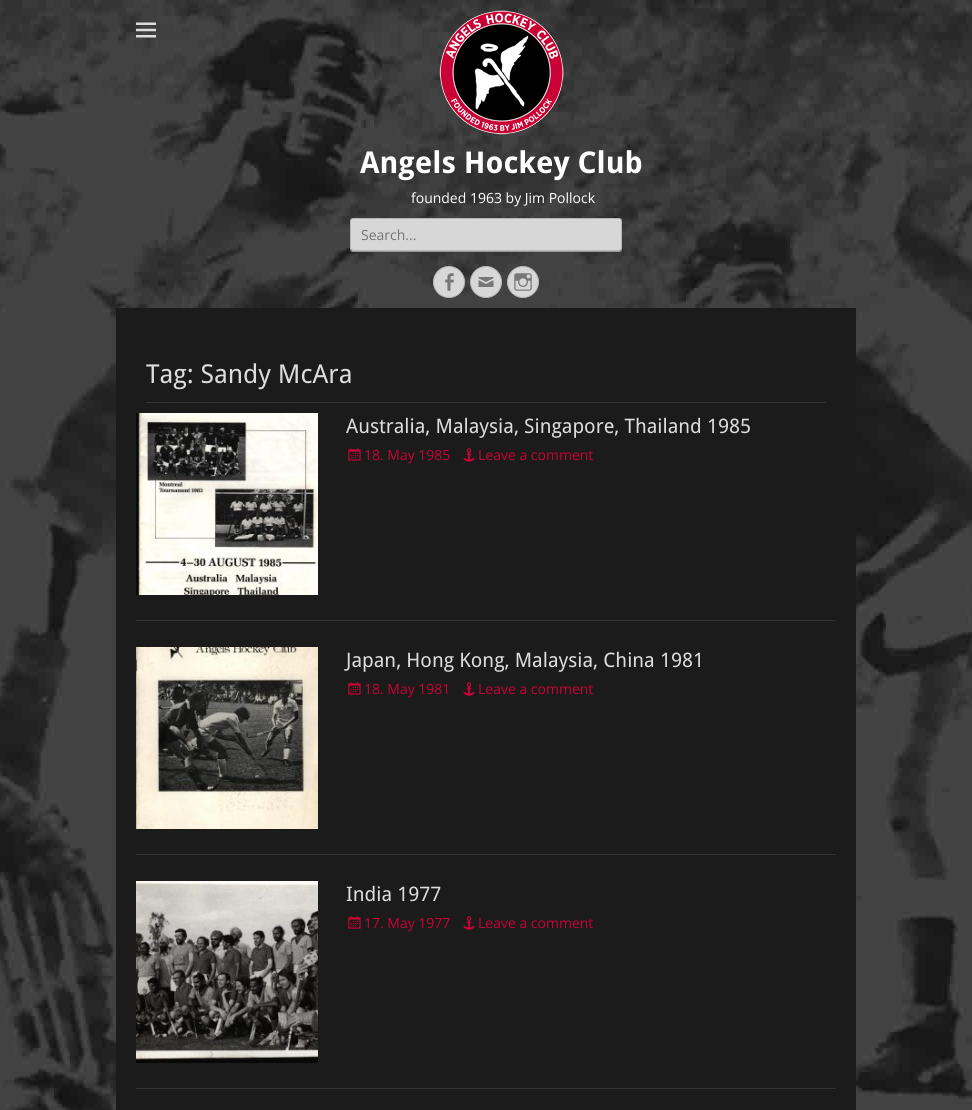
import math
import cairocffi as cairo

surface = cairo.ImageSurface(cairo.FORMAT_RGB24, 972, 1110)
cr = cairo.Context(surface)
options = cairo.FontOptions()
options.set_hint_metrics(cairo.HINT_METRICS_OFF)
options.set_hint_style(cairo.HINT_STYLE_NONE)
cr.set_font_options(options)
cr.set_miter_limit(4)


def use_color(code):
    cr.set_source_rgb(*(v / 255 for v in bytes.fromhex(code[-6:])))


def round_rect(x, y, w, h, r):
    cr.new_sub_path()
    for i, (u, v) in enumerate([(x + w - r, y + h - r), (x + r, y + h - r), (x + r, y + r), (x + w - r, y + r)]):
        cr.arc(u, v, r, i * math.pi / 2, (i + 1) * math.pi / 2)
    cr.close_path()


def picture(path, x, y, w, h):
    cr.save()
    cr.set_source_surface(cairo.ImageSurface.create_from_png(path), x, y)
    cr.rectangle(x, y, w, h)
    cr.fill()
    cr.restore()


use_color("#ffffff")
cr.paint()
picture("img1.png", 0, 0, 972, 1110)
picture("img2.png", 136, 22, 20, 16)
picture("img3.png", 439, 10, 125, 125)
cr.select_font_face("Droid Sans", cairo.FONT_SLANT_NORMAL, cairo.FONT_WEIGHT_BOLD)
cr.set_font_size(30)
use_color("#ffffff")
cr.move_to(360, 173)
cr.show_text("Angels Hockey Club")
cr.select_font_face("Open Sans")
cr.set_font_size(14)
cr.move_to(411, 203)
cr.show_text("founded 1963 by Jim Pollock")
use_color("#999999")
cr.new_path()
cr.move_to(350, 248)
cr.line_to(350, 249)
cr.curve_to(350, 251, 351, 252, 353, 252)
cr.line_to(619, 252)
cr.curve_to(621, 252, 622, 251, 622, 249)
cr.line_to(622, 248)
cr.curve_to(622, 250, 621, 251, 619, 251)
cr.line_to(353, 251)
cr.curve_to(351, 251, 350, 250, 350, 248)
cr.close_path()
cr.fill()
use_color("#d7d7d7")
round_rect(350.5, 218.5, 271, 32, 2.5)
cr.fill_preserve()
use_color("#b6b6b6")
cr.set_line_width(1)
cr.stroke()
use_color("#757575")
cr.move_to(361, 240)
cr.show_text("Search...")
use_color("#d7d7d7")
cr.new_path()
cr.arc(449, 282, 15.5, 0, 2 * math.pi)
cr.fill_preserve()
use_color("#b6b6b6")
cr.stroke()
picture("img4.png", 445, 273, 9, 18)
use_color("#d7d7d7")
cr.arc(486, 282, 15.5, 0, 2 * math.pi)
cr.fill_preserve()
use_color("#b6b6b6")
cr.stroke()
picture("img5.png", 478, 277, 16, 10)
use_color("#d7d7d7")
cr.arc(523, 282, 15.5, 0, 2 * math.pi)
cr.fill_preserve()
use_color("#b6b6b6")
cr.stroke()
picture("img6.png", 514, 273, 18, 18)
use_color("#1b1b1b")
cr.rectangle(116, 308, 740, 802)
cr.fill()
use_color("#333333")
cr.rectangle(146, 402, 680, 1)
cr.fill()
cr.select_font_face("Droid Sans")
cr.set_font_size(26)
use_color("#dddddd")
cr.move_to(146, 383)
cr.show_text("Tag: Sandy McAra")
use_color("#333333")
cr.rectangle(136, 620, 700, 1)
cr.fill()
picture("img7.png", 136, 413, 182, 182)
cr.set_font_size(20)
use_color("#dddddd")
cr.move_to(346, 433)
cr.show_text("Australia, Malaysia, Singapore, Thailand 1985")
picture("img8.png", 348, 448, 13, 13)
cr.select_font_face("Open Sans")
cr.set_font_size(14)
use_color("#c90137")
cr.move_to(364, 460)
cr.show_text("18. May 1985")
picture("img9.png", 463, 448, 12, 14)
cr.move_to(478, 460)
cr.show_text("Leave a comment")
use_color("#333333")
cr.rectangle(136, 854, 700, 1)
cr.fill()
picture("img10.png", 136, 647, 182, 182)
cr.select_font_face("Droid Sans")
cr.set_font_size(20)
use_color("#dddddd")
cr.move_to(346, 667)
cr.show_text("Japan, Hong Kong, Malaysia, China 1981")
picture("img8.png", 348, 682, 13, 13)
cr.select_font_face("Open Sans")
cr.set_font_size(14)
use_color("#c90137")
cr.move_to(364, 694)
cr.show_text("18. May 1981")
picture("img9.png", 463, 682, 12, 14)
cr.move_to(478, 694)
cr.show_text("Leave a comment")
use_color("#333333")
cr.rectangle(136, 1088, 700, 1)
cr.fill()
picture("img11.png", 136, 881, 182, 182)
cr.select_font_face("Droid Sans")
cr.set_font_size(20)
use_color("#dddddd")
cr.move_to(346, 901)
cr.show_text("India 1977")
picture("img8.png", 348, 916, 13, 13)
cr.select_font_face("Open Sans")
cr.set_font_size(14)
use_color("#c90137")
cr.move_to(364, 928)
cr.show_text("17. May 1977")
picture("img9.png", 463, 916, 12, 14)
cr.move_to(478, 928)
cr.show_text("Leave a comment")
surface.write_to_png("result.png")
